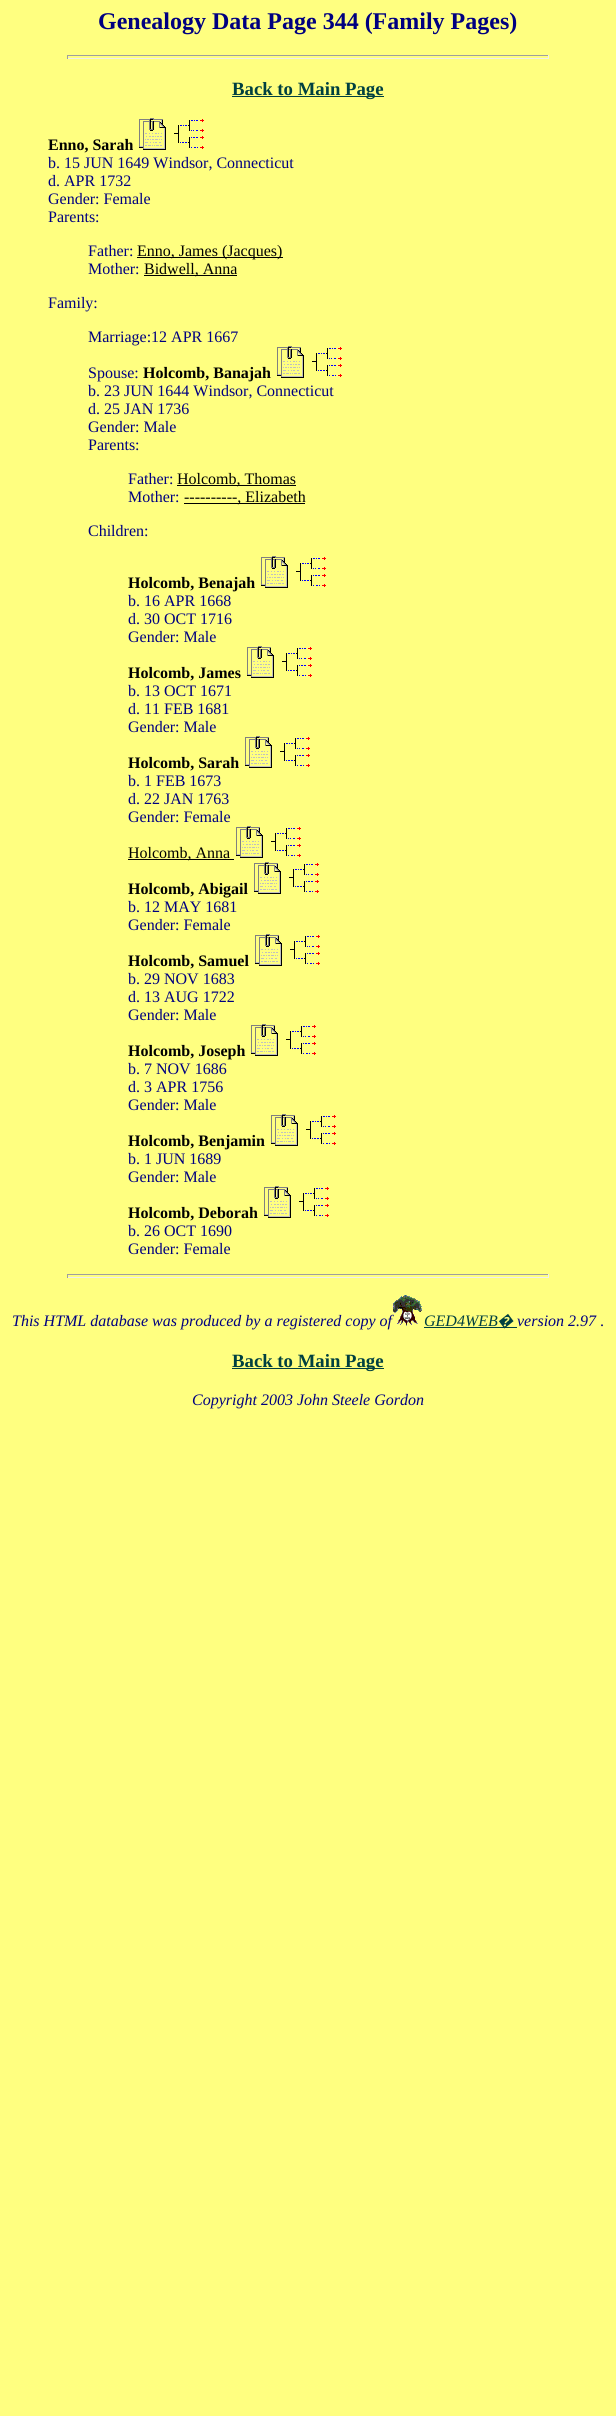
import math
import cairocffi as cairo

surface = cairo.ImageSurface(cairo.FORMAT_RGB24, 616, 2416)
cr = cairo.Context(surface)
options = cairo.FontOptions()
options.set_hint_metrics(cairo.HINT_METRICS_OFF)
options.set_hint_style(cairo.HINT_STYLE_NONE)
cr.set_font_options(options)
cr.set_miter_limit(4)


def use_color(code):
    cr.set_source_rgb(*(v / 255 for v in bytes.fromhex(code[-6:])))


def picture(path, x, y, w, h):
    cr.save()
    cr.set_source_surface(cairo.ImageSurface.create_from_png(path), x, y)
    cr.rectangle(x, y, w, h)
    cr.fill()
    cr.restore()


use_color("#ffff80")
cr.paint()
cr.select_font_face("Liberation Serif", cairo.FONT_SLANT_NORMAL, cairo.FONT_WEIGHT_BOLD)
cr.set_font_size(24)
use_color("#000080")
cr.move_to(98, 29)
cr.show_text("Genealogy Data Page 344 (Family Pages)")
use_color("#9f9f9f")
cr.rectangle(67, 55, 482, 1)
cr.fill()
use_color("#eeeeee")
cr.rectangle(548, 55, 1, 4)
cr.fill()
cr.rectangle(67, 58, 482, 1)
cr.fill()
use_color("#9f9f9f")
cr.rectangle(67, 55, 1, 4)
cr.fill()
use_color("#004040")
cr.rectangle(232, 96, 152, 1)
cr.fill()
cr.set_font_size(18.75)
cr.move_to(232, 95)
cr.show_text("Back to Main Page")
cr.set_font_size(16)
use_color("#000000")
cr.move_to(48, 150)
cr.show_text("Enno, Sarah")
picture("img1.png", 139, 118, 27, 32)
picture("img2.png", 174, 119, 30, 30)
cr.select_font_face("Liberation Serif")
use_color("#000080")
cr.move_to(48, 168)
cr.show_text("b. 15 JUN 1649 Windsor, Connecticut")
cr.move_to(48, 186)
cr.show_text("d. APR 1732")
cr.move_to(48, 204)
cr.show_text("Gender: Female")
cr.move_to(48, 222)
cr.show_text("Parents:")
cr.move_to(88, 256)
cr.show_text("Father:")
use_color("#000000")
cr.rectangle(137, 257, 146, 1)
cr.fill()
cr.move_to(137, 256)
cr.show_text("Enno, James (Jacques)")
use_color("#000080")
cr.move_to(88, 274)
cr.show_text("Mother:")
use_color("#000000")
cr.rectangle(144, 275, 93, 1)
cr.fill()
cr.move_to(144, 274)
cr.show_text("Bidwell, Anna")
use_color("#000080")
cr.move_to(48, 308)
cr.show_text("Family:")
cr.move_to(88, 342)
cr.show_text("Marriage:12 APR 1667")
cr.move_to(88, 378)
cr.show_text("Spouse:")
cr.select_font_face("Liberation Serif", cairo.FONT_SLANT_NORMAL, cairo.FONT_WEIGHT_BOLD)
use_color("#000000")
cr.move_to(143, 378)
cr.show_text("Holcomb, Banajah")
picture("img1.png", 277, 346, 27, 32)
picture("img2.png", 312, 347, 30, 30)
cr.select_font_face("Liberation Serif")
use_color("#000080")
cr.move_to(88, 396)
cr.show_text("b. 23 JUN 1644 Windsor, Connecticut")
cr.move_to(88, 414)
cr.show_text("d. 25 JAN 1736")
cr.move_to(88, 432)
cr.show_text("Gender: Male")
cr.move_to(88, 450)
cr.show_text("Parents:")
cr.move_to(128, 484)
cr.show_text("Father:")
use_color("#000000")
cr.rectangle(177, 485, 119, 1)
cr.fill()
cr.move_to(177, 484)
cr.show_text("Holcomb, Thomas")
use_color("#000080")
cr.move_to(128, 502)
cr.show_text("Mother:")
use_color("#000000")
cr.rectangle(184, 503, 121, 1)
cr.fill()
cr.move_to(184, 502)
cr.show_text("----------, Elizabeth")
use_color("#000080")
cr.move_to(88, 536)
cr.show_text("Children:")
cr.select_font_face("Liberation Serif", cairo.FONT_SLANT_NORMAL, cairo.FONT_WEIGHT_BOLD)
use_color("#000000")
cr.move_to(128, 588)
cr.show_text("Holcomb, Benajah")
picture("img1.png", 261, 556, 27, 32)
picture("img2.png", 296, 557, 30, 30)
cr.select_font_face("Liberation Serif")
use_color("#000080")
cr.move_to(128, 606)
cr.show_text("b. 16 APR 1668")
cr.move_to(128, 624)
cr.show_text("d. 30 OCT 1716")
cr.move_to(128, 642)
cr.show_text("Gender: Male")
cr.select_font_face("Liberation Serif", cairo.FONT_SLANT_NORMAL, cairo.FONT_WEIGHT_BOLD)
use_color("#000000")
cr.move_to(128, 678)
cr.show_text("Holcomb, James")
picture("img1.png", 247, 646, 27, 32)
picture("img2.png", 282, 647, 30, 30)
cr.select_font_face("Liberation Serif")
use_color("#000080")
cr.move_to(128, 696)
cr.show_text("b. 13 OCT 1671")
cr.move_to(128, 714)
cr.show_text("d. 11 FEB 1681")
cr.move_to(128, 732)
cr.show_text("Gender: Male")
cr.select_font_face("Liberation Serif", cairo.FONT_SLANT_NORMAL, cairo.FONT_WEIGHT_BOLD)
use_color("#000000")
cr.move_to(128, 768)
cr.show_text("Holcomb, Sarah")
picture("img1.png", 245, 736, 27, 32)
picture("img2.png", 280, 737, 30, 30)
cr.select_font_face("Liberation Serif")
use_color("#000080")
cr.move_to(128, 786)
cr.show_text("b. 1 FEB 1673")
cr.move_to(128, 804)
cr.show_text("d. 22 JAN 1763")
cr.move_to(128, 822)
cr.show_text("Gender: Female")
use_color("#000000")
cr.rectangle(128, 859, 106, 1)
cr.fill()
cr.move_to(128, 858)
cr.show_text("Holcomb, Anna")
picture("img1.png", 236, 826, 27, 32)
picture("img2.png", 271, 827, 30, 30)
cr.select_font_face("Liberation Serif", cairo.FONT_SLANT_NORMAL, cairo.FONT_WEIGHT_BOLD)
cr.move_to(128, 894)
cr.show_text("Holcomb, Abigail")
picture("img1.png", 254, 862, 27, 32)
picture("img2.png", 289, 863, 30, 30)
cr.select_font_face("Liberation Serif")
use_color("#000080")
cr.move_to(128, 912)
cr.show_text("b. 12 MAY 1681")
cr.move_to(128, 930)
cr.show_text("Gender: Female")
cr.select_font_face("Liberation Serif", cairo.FONT_SLANT_NORMAL, cairo.FONT_WEIGHT_BOLD)
use_color("#000000")
cr.move_to(128, 966)
cr.show_text("Holcomb, Samuel")
picture("img1.png", 255, 934, 27, 32)
picture("img2.png", 290, 935, 30, 30)
cr.select_font_face("Liberation Serif")
use_color("#000080")
cr.move_to(128, 984)
cr.show_text("b. 29 NOV 1683")
cr.move_to(128, 1002)
cr.show_text("d. 13 AUG 1722")
cr.move_to(128, 1020)
cr.show_text("Gender: Male")
cr.select_font_face("Liberation Serif", cairo.FONT_SLANT_NORMAL, cairo.FONT_WEIGHT_BOLD)
use_color("#000000")
cr.move_to(128, 1056)
cr.show_text("Holcomb, Joseph")
picture("img1.png", 251, 1024, 27, 32)
picture("img2.png", 286, 1025, 30, 30)
cr.select_font_face("Liberation Serif")
use_color("#000080")
cr.move_to(128, 1074)
cr.show_text("b. 7 NOV 1686")
cr.move_to(128, 1092)
cr.show_text("d. 3 APR 1756")
cr.move_to(128, 1110)
cr.show_text("Gender: Male")
cr.select_font_face("Liberation Serif", cairo.FONT_SLANT_NORMAL, cairo.FONT_WEIGHT_BOLD)
use_color("#000000")
cr.move_to(128, 1146)
cr.show_text("Holcomb, Benjamin")
picture("img1.png", 271, 1114, 27, 32)
picture("img2.png", 306, 1115, 30, 30)
cr.select_font_face("Liberation Serif")
use_color("#000080")
cr.move_to(128, 1164)
cr.show_text("b. 1 JUN 1689")
cr.move_to(128, 1182)
cr.show_text("Gender: Male")
cr.select_font_face("Liberation Serif", cairo.FONT_SLANT_NORMAL, cairo.FONT_WEIGHT_BOLD)
use_color("#000000")
cr.move_to(128, 1218)
cr.show_text("Holcomb, Deborah")
picture("img1.png", 264, 1186, 27, 32)
picture("img2.png", 299, 1187, 30, 30)
cr.select_font_face("Liberation Serif")
use_color("#000080")
cr.move_to(128, 1236)
cr.show_text("b. 26 OCT 1690")
cr.move_to(128, 1254)
cr.show_text("Gender: Female")
use_color("#9f9f9f")
cr.rectangle(67, 1274, 482, 1)
cr.fill()
use_color("#eeeeee")
cr.rectangle(548, 1274, 1, 4)
cr.fill()
cr.rectangle(67, 1277, 482, 1)
cr.fill()
use_color("#9f9f9f")
cr.rectangle(67, 1274, 1, 4)
cr.fill()
cr.select_font_face("Liberation Serif", cairo.FONT_SLANT_ITALIC)
use_color("#000080")
cr.move_to(12, 1326)
cr.show_text("This HTML database was produced by a registered copy of")
picture("img3.png", 393, 1295, 29, 31)
use_color("#004040")
cr.move_to(424, 1326)
cr.show_text("GED4WEB")
cr.rectangle(424, 1327, 93, 1)
cr.fill()
cr.select_font_face("Noto Sans", cairo.FONT_SLANT_ITALIC)
cr.move_to(497, 1326)
cr.show_text("�")
cr.select_font_face("Liberation Serif", cairo.FONT_SLANT_ITALIC)
use_color("#000080")
cr.move_to(517, 1326)
cr.show_text("version 2.97")
cr.select_font_face("Liberation Serif")
cr.move_to(600, 1326)
cr.show_text(".")
use_color("#004040")
cr.rectangle(232, 1368, 152, 1)
cr.fill()
cr.select_font_face("Liberation Serif", cairo.FONT_SLANT_NORMAL, cairo.FONT_WEIGHT_BOLD)
cr.set_font_size(18.75)
cr.move_to(232, 1367)
cr.show_text("Back to Main Page")
cr.select_font_face("Liberation Serif", cairo.FONT_SLANT_ITALIC)
cr.set_font_size(16)
use_color("#000080")
cr.move_to(192, 1405)
cr.show_text("Copyright 2003 John Steele Gordon")
surface.write_to_png("result.png")
